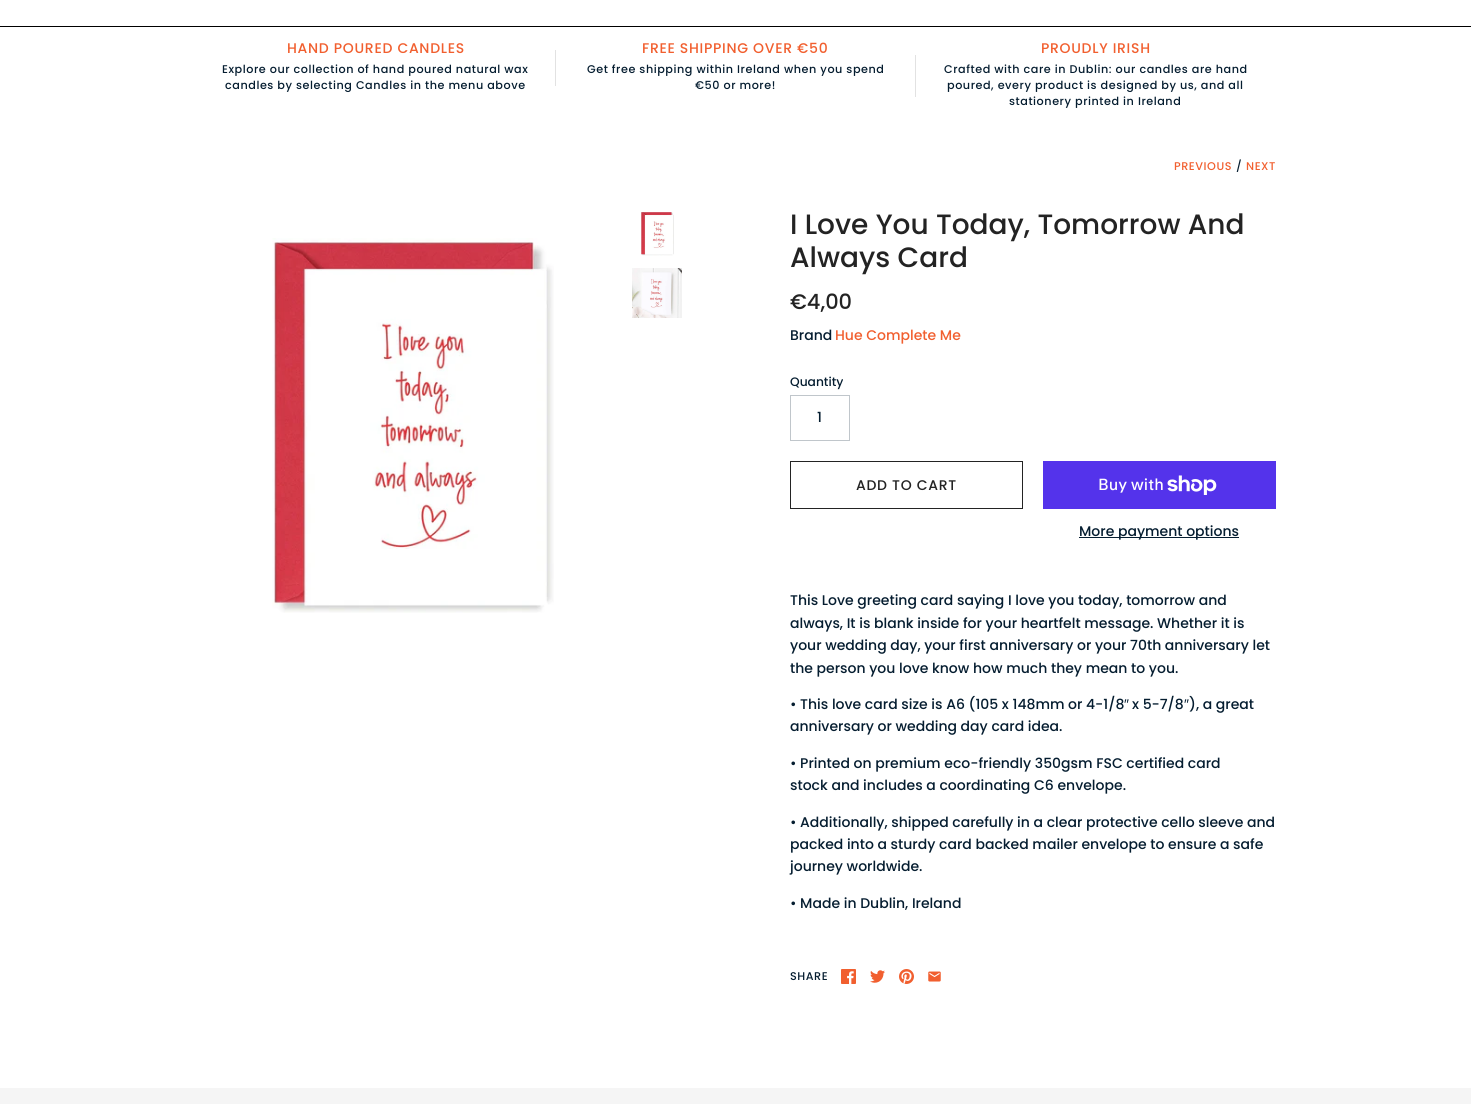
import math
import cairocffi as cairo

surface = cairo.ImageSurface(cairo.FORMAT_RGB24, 1471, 1104)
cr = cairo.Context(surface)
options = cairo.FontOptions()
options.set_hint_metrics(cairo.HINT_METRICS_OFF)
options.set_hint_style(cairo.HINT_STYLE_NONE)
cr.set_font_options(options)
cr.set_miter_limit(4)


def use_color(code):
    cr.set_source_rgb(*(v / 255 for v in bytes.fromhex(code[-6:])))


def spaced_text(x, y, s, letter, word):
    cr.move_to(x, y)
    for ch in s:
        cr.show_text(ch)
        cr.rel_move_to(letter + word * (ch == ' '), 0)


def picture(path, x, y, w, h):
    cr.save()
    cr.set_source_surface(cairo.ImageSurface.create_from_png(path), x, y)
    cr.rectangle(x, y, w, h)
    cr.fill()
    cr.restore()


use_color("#ffffff")
cr.paint()
use_color("#000000")
cr.rectangle(0, 26, 1471, 1)
cr.fill()
cr.select_font_face("Poppins Medium")
cr.set_font_size(14)
use_color("#f15f2f")
spaced_text(287, 53, "HAND POURED CANDLES", 0.7, 0)
cr.set_font_size(11.2)
use_color("#051d30")
spaced_text(222, 73, "Explore our collection of hand poured natural wax", 0.55, 0)
spaced_text(225, 89, "candles by selecting Candles in the menu above", 0.55, 0)
cr.set_font_size(14)
use_color("#f15f2f")
spaced_text(642, 53, "FREE SHIPPING OVER €50", 0.7, 0)
use_color("#e2e2e2")
cr.rectangle(555, 50, 1, 36)
cr.fill()
cr.set_font_size(11.2)
use_color("#051d30")
spaced_text(587, 73, "Get free shipping within Ireland when you spend", 0.55, 0)
spaced_text(695, 89, "€50 or more!", 0.55, 0)
cr.set_font_size(14)
use_color("#f15f2f")
spaced_text(1041, 53, "PROUDLY IRISH", 0.7, 0)
use_color("#e2e2e2")
cr.rectangle(915, 55, 1, 42)
cr.fill()
cr.set_font_size(11.2)
use_color("#051d30")
spaced_text(944, 73, "Crafted with care in Dublin: our candles are hand", 0.55, 0)
spaced_text(947, 89, "poured, every product is designed by us, and all", 0.55, 0)
spaced_text(1009, 105, "stationery printed in Ireland", 0.55, 0)
use_color("#f15f2f")
spaced_text(1174, 170, "PREVIOUS", 0.55, 0)
use_color("#051d30")
spaced_text(1236, 170, "/", 0.55, 0)
use_color("#f15f2f")
spaced_text(1246, 170, "NEXT", 0.55, 0)
picture("img1.png", 272, 238, 282, 375)
picture("img2.png", 641, 212, 33, 44)
picture("img3.png", 632, 268, 50, 50)
cr.set_font_size(28)
use_color("#232323")
cr.move_to(790, 234)
cr.show_text("I Love You Today, Tomorrow And")
cr.move_to(790, 267)
cr.show_text("Always Card")
cr.set_font_size(21)
cr.move_to(790, 309)
cr.show_text("€4,00")
cr.set_font_size(14)
use_color("#051d30")
cr.move_to(790, 340)
cr.show_text("Brand")
use_color("#f15f2f")
cr.move_to(835, 340)
cr.show_text("Hue Complete Me")
cr.set_font_size(12.25)
use_color("#051d30")
cr.move_to(790, 386)
cr.show_text("Quantity")
cr.rectangle(790.5, 395.5, 59, 45)
use_color("#c0c6cb")
cr.set_line_width(1)
cr.stroke()
cr.set_font_size(14)
use_color("#051d30")
cr.move_to(817, 422)
cr.show_text("1")
cr.rectangle(790.5, 461.5, 232, 47)
use_color("#232323")
cr.stroke()
spaced_text(856, 490, "ADD TO CART", 0.7, 0)
use_color("#5433eb")
cr.rectangle(1043, 461, 233, 48)
cr.fill()
cr.select_font_face("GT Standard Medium")
cr.set_font_size(16)
use_color("#ffffff")
cr.move_to(1098, 490)
cr.show_text("Buy with")
picture("img4.png", 1167, 475, 50, 20)
use_color("#051d30")
cr.rectangle(1079, 537, 160, 1)
cr.fill()
cr.select_font_face("Poppins Medium")
cr.set_font_size(14)
cr.move_to(1079, 536)
cr.show_text("More payment options")
cr.move_to(790, 605)
cr.show_text("This Love greeting card saying I love you today, tomorrow and")
cr.move_to(790, 628)
cr.show_text("always, It is blank inside for your heartfelt message. Whether it is")
cr.move_to(790, 650)
cr.show_text("your wedding day, your first anniversary or your 70th anniversary let")
cr.move_to(790, 673)
cr.show_text("the person you love know how much they mean to you.")
cr.move_to(790, 709)
cr.show_text("• This love card size is A6 (105 x 148mm or 4-1/8")
cr.select_font_face("Liberation Sans")
cr.move_to(1124, 709)
cr.show_text("″")
cr.select_font_face("Poppins Medium")
cr.move_to(1132, 709)
cr.show_text("x 5-7/8")
cr.select_font_face("Liberation Sans")
cr.move_to(1184, 709)
cr.show_text("″")
cr.select_font_face("Poppins Medium")
cr.move_to(1189, 709)
cr.show_text("), a great")
cr.move_to(790, 731)
cr.show_text("anniversary or wedding day card idea.")
cr.move_to(790, 768)
cr.show_text("• Printed on premium eco-friendly 350gsm FSC certified card")
cr.move_to(790, 790)
cr.show_text("stock and includes a coordinating C6 envelope.")
cr.move_to(790, 827)
cr.show_text("• Additionally, shipped carefully in a clear protective cello sleeve and")
cr.move_to(790, 849)
cr.show_text("packed into a sturdy card backed mailer envelope to ensure a safe")
cr.move_to(790, 871)
cr.show_text("journey worldwide.")
cr.move_to(790, 908)
cr.show_text("• Made in Dublin, Ireland")
cr.set_font_size(11.2)
spaced_text(790, 980, "SHARE", 0.55, 0)
picture("img5.png", 841, 969, 15, 15)
picture("img6.png", 870, 970, 15, 13)
picture("img7.png", 899, 969, 15, 15)
picture("img8.png", 928, 971, 13, 11)
use_color("#f5f5f5")
cr.rectangle(0, 1088, 1471, 16)
cr.fill()
surface.write_to_png("result.png")
